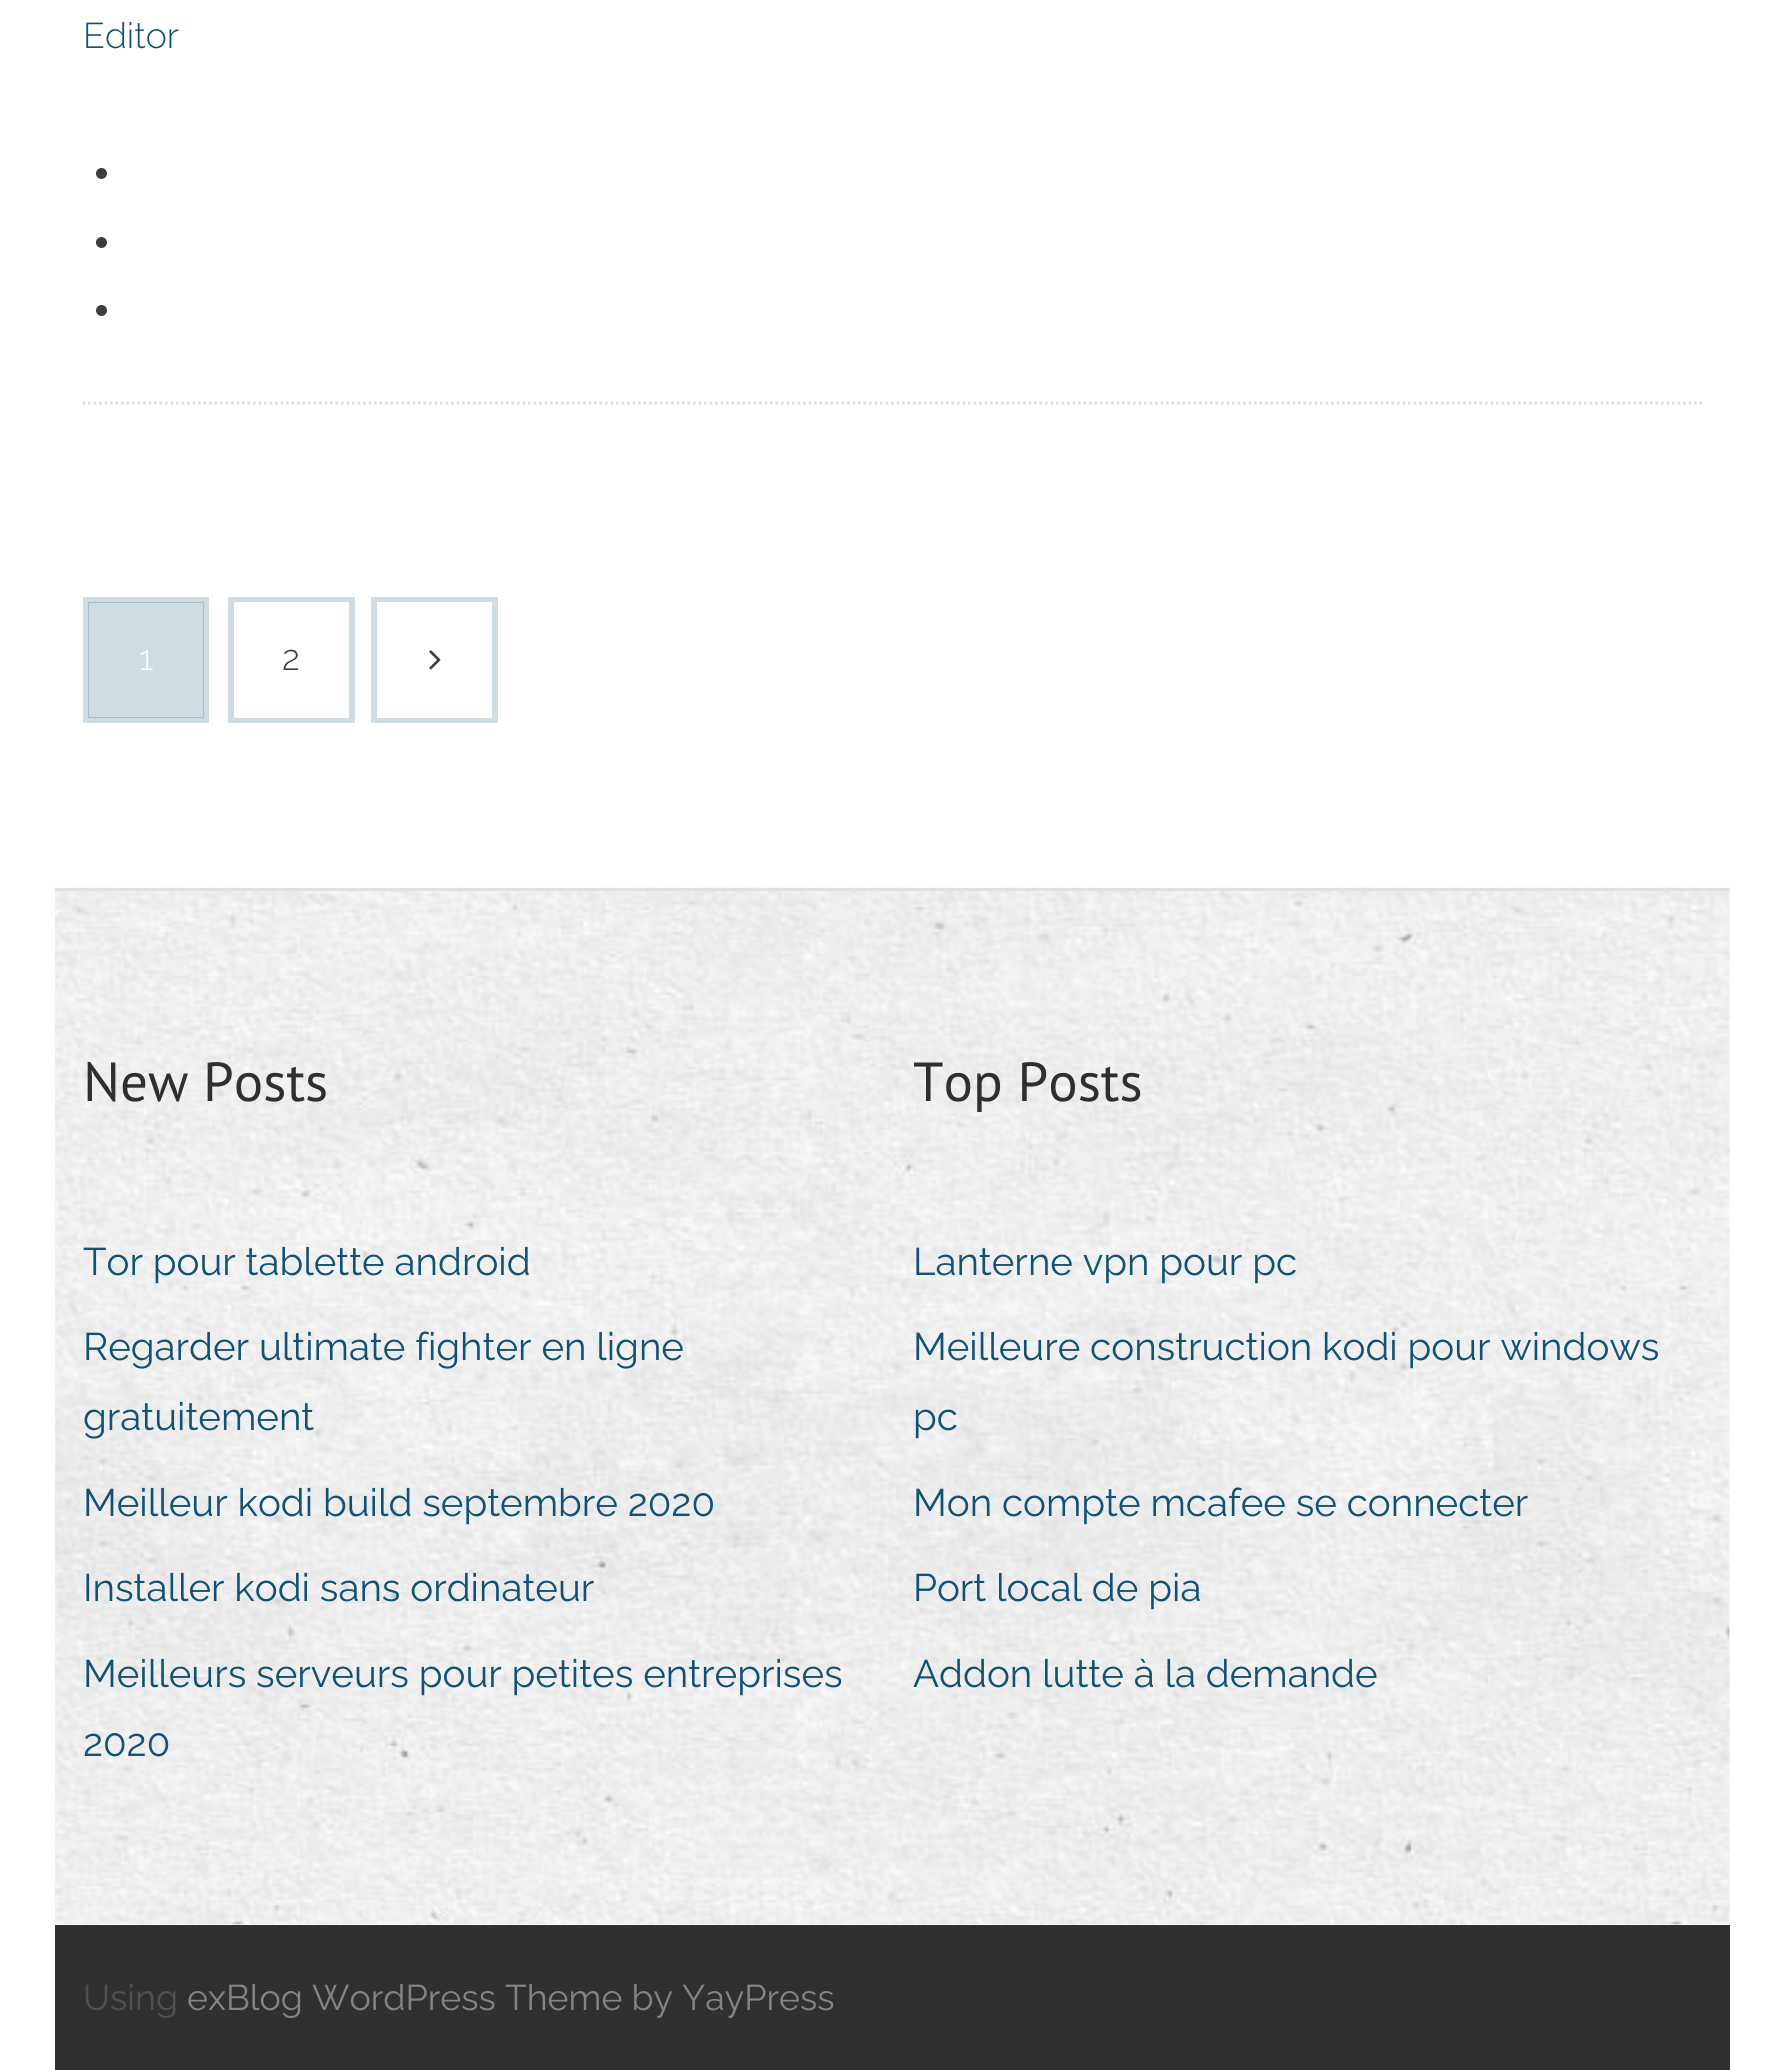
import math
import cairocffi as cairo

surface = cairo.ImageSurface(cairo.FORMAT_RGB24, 1784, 2070)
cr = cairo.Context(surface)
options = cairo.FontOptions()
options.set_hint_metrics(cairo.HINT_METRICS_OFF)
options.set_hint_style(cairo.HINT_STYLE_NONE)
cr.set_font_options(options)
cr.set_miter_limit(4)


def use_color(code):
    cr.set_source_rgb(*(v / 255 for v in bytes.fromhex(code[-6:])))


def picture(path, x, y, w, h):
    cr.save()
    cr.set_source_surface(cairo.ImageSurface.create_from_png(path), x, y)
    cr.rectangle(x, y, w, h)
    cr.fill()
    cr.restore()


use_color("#ffffff")
cr.paint()
cr.new_path()
cr.move_to(82.5, 403)
cr.line_to(1702, 403)
use_color("#dddddd")
cr.set_line_width(2.8)
cr.set_dash([2.75, 2.75])
cr.stroke()
cr.select_font_face("Raleway Light")
cr.set_font_size(35.75)
use_color("#115172")
cr.move_to(83, 48)
cr.show_text("Editor")
use_color("#3d3d3d")
cr.new_path()
cr.arc(101.5, 173.5, 5.5, 0, 2 * math.pi)
cr.fill()
cr.arc(101.5, 242.5, 5.5, 0, 2 * math.pi)
cr.fill()
cr.arc(101.5, 310.5, 5.5, 0, 2 * math.pi)
cr.fill()
cr.rectangle(86, 600, 120, 120)
use_color("#cfdce3")
cr.set_line_width(6)
cr.set_dash([])
cr.stroke()
cr.set_source_rgba(0.067, 0.318, 0.447, 0.2)
cr.rectangle(88, 602, 116, 116)
cr.fill()
cr.set_font_size(35)
use_color("#ffffff")
cr.move_to(139, 670)
cr.show_text("1")
cr.rectangle(231, 600, 121, 120)
use_color("#cfdce3")
cr.stroke()
use_color("#ffffff")
cr.rectangle(234, 602, 115, 116)
cr.fill()
use_color("#3d3d3d")
cr.move_to(282, 670)
cr.show_text("2")
cr.rectangle(374, 600, 121, 120)
use_color("#cfdce3")
cr.stroke()
use_color("#ffffff")
cr.rectangle(377, 602, 115, 116)
cr.fill()
picture("img1.png", 429, 650, 12, 20)
picture("img2.png", 55, 887, 1675, 1038)
use_color("#e1e1e1")
cr.rectangle(55, 888, 1675, 3)
cr.fill()
cr.select_font_face("PT Sans")
cr.set_font_size(55)
use_color("#2f2f2f")
cr.move_to(83, 1101)
cr.show_text("New Posts")
cr.select_font_face("Raleway")
cr.set_font_size(38.5)
use_color("#115172")
cr.move_to(83, 1275)
cr.show_text("Tor pour tablette android")
cr.move_to(83, 1360)
cr.show_text("Regarder ultimate fighter en ligne")
cr.move_to(83, 1430)
cr.show_text("gratuitement")
cr.move_to(83, 1516)
cr.show_text("Meilleur kodi build septembre 2020")
cr.move_to(83, 1601)
cr.show_text("Installer kodi sans ordinateur")
cr.move_to(83, 1687)
cr.show_text("Meilleurs serveurs pour petites entreprises")
cr.move_to(83, 1756)
cr.show_text("2020")
cr.select_font_face("PT Sans")
cr.set_font_size(55)
use_color("#2f2f2f")
cr.move_to(913, 1101)
cr.show_text("Top Posts")
cr.select_font_face("Raleway")
cr.set_font_size(38.5)
use_color("#115172")
cr.move_to(913, 1275)
cr.show_text("Lanterne vpn pour pc")
cr.move_to(913, 1360)
cr.show_text("Meilleure construction kodi pour windows")
cr.move_to(913, 1430)
cr.show_text("pc")
cr.move_to(913, 1516)
cr.show_text("Mon compte mcafee se connecter")
cr.move_to(913, 1601)
cr.show_text("Port local de pia")
cr.move_to(913, 1687)
cr.show_text("Addon lutte à la demande")
use_color("#303030")
cr.rectangle(55, 1925, 1675, 145)
cr.fill()
cr.set_font_size(35.75)
use_color("#505050")
cr.move_to(83, 2010)
cr.show_text("Using")
use_color("#848484")
cr.move_to(187, 2010)
cr.show_text("exBlog WordPress Theme by YayPress")
surface.write_to_png("result.png")
